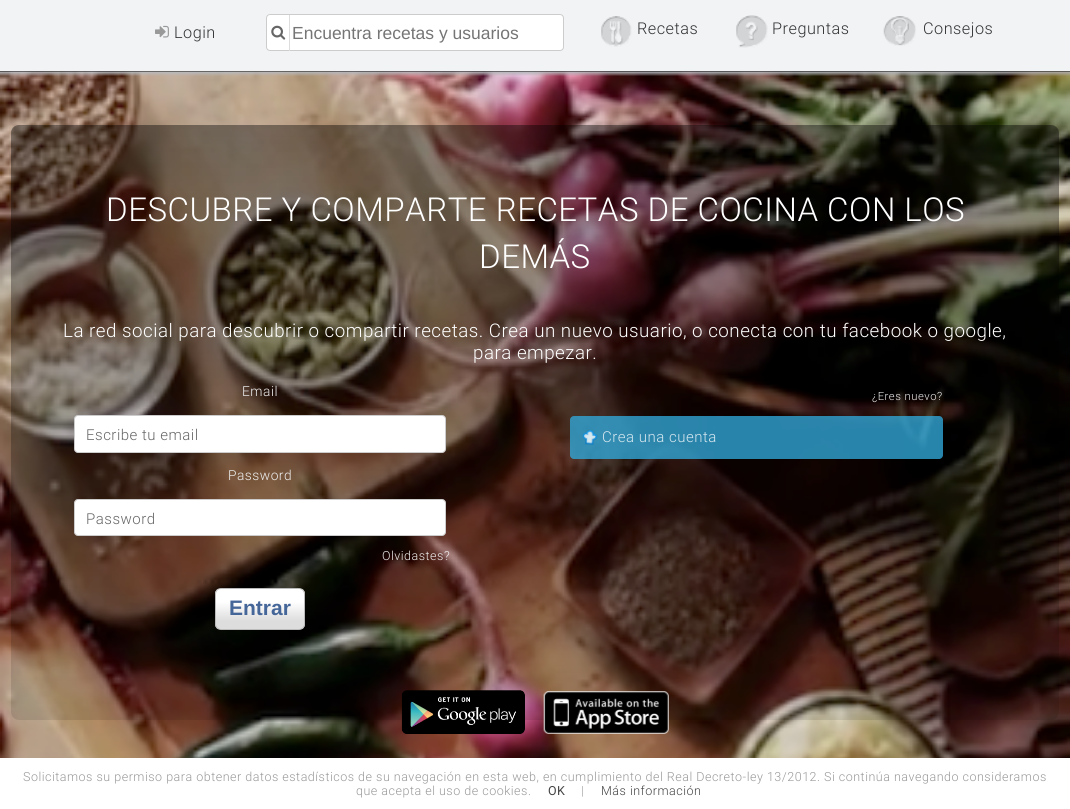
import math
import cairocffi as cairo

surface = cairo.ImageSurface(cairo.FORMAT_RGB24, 1070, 809)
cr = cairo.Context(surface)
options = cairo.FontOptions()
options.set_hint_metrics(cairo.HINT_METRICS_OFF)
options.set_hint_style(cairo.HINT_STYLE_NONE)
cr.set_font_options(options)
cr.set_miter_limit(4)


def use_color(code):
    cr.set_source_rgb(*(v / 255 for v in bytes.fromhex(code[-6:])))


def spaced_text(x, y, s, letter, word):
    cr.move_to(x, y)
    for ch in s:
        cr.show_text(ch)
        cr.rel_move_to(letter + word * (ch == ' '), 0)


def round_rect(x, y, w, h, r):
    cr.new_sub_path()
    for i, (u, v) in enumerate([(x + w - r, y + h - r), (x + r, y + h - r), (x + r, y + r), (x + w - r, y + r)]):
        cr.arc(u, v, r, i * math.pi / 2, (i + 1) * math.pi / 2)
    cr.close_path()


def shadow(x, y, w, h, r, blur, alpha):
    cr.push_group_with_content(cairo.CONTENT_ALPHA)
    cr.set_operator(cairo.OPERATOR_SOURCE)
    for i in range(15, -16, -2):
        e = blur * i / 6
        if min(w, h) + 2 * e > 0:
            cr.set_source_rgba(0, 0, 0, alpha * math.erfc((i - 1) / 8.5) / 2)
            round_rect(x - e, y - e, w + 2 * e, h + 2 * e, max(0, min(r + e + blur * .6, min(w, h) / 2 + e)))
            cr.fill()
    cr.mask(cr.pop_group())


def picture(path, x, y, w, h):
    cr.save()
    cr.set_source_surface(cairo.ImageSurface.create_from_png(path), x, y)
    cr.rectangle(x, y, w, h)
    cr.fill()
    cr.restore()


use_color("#f1f3f5")
cr.paint()
picture("img1.png", 155, 25, 14, 13)
cr.select_font_face("Roboto Light")
cr.set_font_size(16.25)
use_color("#333333")
spaced_text(174, 38, "Login", 0.5, 0)
use_color("#ffffff")
round_rect(266.5, 14.5, 297, 36, 3.5)
cr.fill_preserve()
use_color("#cccccc")
cr.set_line_width(1)
cr.stroke()
use_color("#dddddd")
cr.rectangle(289, 15, 1, 36)
cr.fill()
picture("img2.png", 271, 25, 15, 15)
cr.select_font_face("Liberation Sans")
cr.set_font_size(17.5)
use_color("#757575")
cr.move_to(292, 39)
cr.show_text("Encuentra recetas y usuarios")
picture("img3.png", 601, 16, 31, 31)
cr.select_font_face("Roboto Light")
cr.set_font_size(16.25)
use_color("#333333")
spaced_text(637, 34, "Recetas", 0.5, 0)
picture("img4.png", 736, 15, 32, 33)
spaced_text(772, 34, "Preguntas", 0.5, 0)
picture("img5.png", 883, 16, 33, 30)
spaced_text(923, 34, "Consejos", 0.5, 0)
use_color("#000000")
cr.rectangle(0, 71, 1070, 1)
cr.fill()
picture("img6.png", 0, 71, 1070, 687)
cr.set_font_size(33)
use_color("#ffffff")
spaced_text(106, 221, "DESCUBRE Y COMPARTE RECETAS DE COCINA CON LOS", 0.5, 0)
spaced_text(479, 268, "DEMÁS", 0.5, 0)
cr.set_font_size(18.75)
spaced_text(63, 337, "La red social para descubrir o compartir recetas. Crea un nuevo usuario, o conecta con tu facebook o google,", 0.5, 0)
spaced_text(473, 359, "para empezar.", 0.5, 0)
cr.set_font_size(13.75)
use_color("#eeeeee")
spaced_text(242, 396, "Email", 0.5, 0)
use_color("#ffffff")
round_rect(74.5, 415.5, 371, 37, 3.5)
cr.fill_preserve()
use_color("#cccccc")
cr.stroke()
cr.set_font_size(15)
use_color("#666666")
spaced_text(86, 440, "Escribe tu email", 0.5, 0)
cr.set_font_size(13.75)
use_color("#eeeeee")
spaced_text(228, 480, "Password", 0.5, 0)
use_color("#ffffff")
round_rect(74.5, 499.5, 371, 36, 3.5)
cr.fill_preserve()
use_color("#cccccc")
cr.stroke()
cr.set_font_size(15)
use_color("#666666")
spaced_text(86, 524, "Password", 0.5, 0)
cr.set_font_size(12.5)
use_color("#eeeeee")
spaced_text(382, 560, "Olvidastes?", 0.5, 0)
use_color("#000000")
shadow(215, 588, 90, 42, 6, 2, 0.2)
cr.save()
round_rect(215, 588, 90, 42, 6)
cr.clip()
gradient = cairo.LinearGradient(216, 629, 216, 589)
gradient.add_color_stop_rgba(0.2, 0.867, 0.867, 0.867, 1)
gradient.add_color_stop_rgba(0.68, 1, 1, 1, 1)
cr.set_source(gradient)
cr.rectangle(215, 589, 90, 40)
cr.fill()
cr.restore()
round_rect(215.5, 588.5, 89, 41, 5.5)
use_color("#bbbbbb")
cr.stroke()
cr.select_font_face("Liberation Sans", cairo.FONT_SLANT_NORMAL, cairo.FONT_WEIGHT_BOLD)
cr.set_font_size(21)
use_color("#446699")
cr.move_to(229, 615)
cr.show_text("Entrar")
cr.select_font_face("Roboto Light")
cr.set_font_size(11.25)
use_color("#eeeeee")
spaced_text(872, 400, "¿Eres nuevo?", 0.5, 0)
cr.set_source_rgba(0.192, 0.647, 0.839, 0.8)
round_rect(570, 416, 373, 43, 4)
cr.fill()
picture("img7.png", 582, 430, 16, 15)
cr.set_font_size(15)
use_color("#d5e7ef")
spaced_text(602, 442, "Crea una cuenta", 0.5, 0)
picture("img8.png", 401, 690, 124, 44)
picture("img9.png", 543, 691, 126, 43)
use_color("#ffffff")
cr.rectangle(0, 758, 1070, 51)
cr.fill()
cr.set_font_size(12.5)
use_color("#999999")
spaced_text(23, 781, "Solicitamos su permiso para obtener datos estadísticos de su navegación en esta web, en cumplimiento del Real Decreto-ley 13/2012. Si continúa navegando consideramos", 0.5, 0)
spaced_text(356, 795, "que acepta el uso de cookies.", 0.5, 0)
cr.select_font_face("Roboto")
use_color("#444444")
spaced_text(548, 795, "OK", 0.5, 0)
cr.select_font_face("Roboto Light")
use_color("#999999")
spaced_text(581, 795, "|", 0.5, 0)
use_color("#444444")
spaced_text(601, 795, "Más información", 0.5, 0)
surface.write_to_png("result.png")
